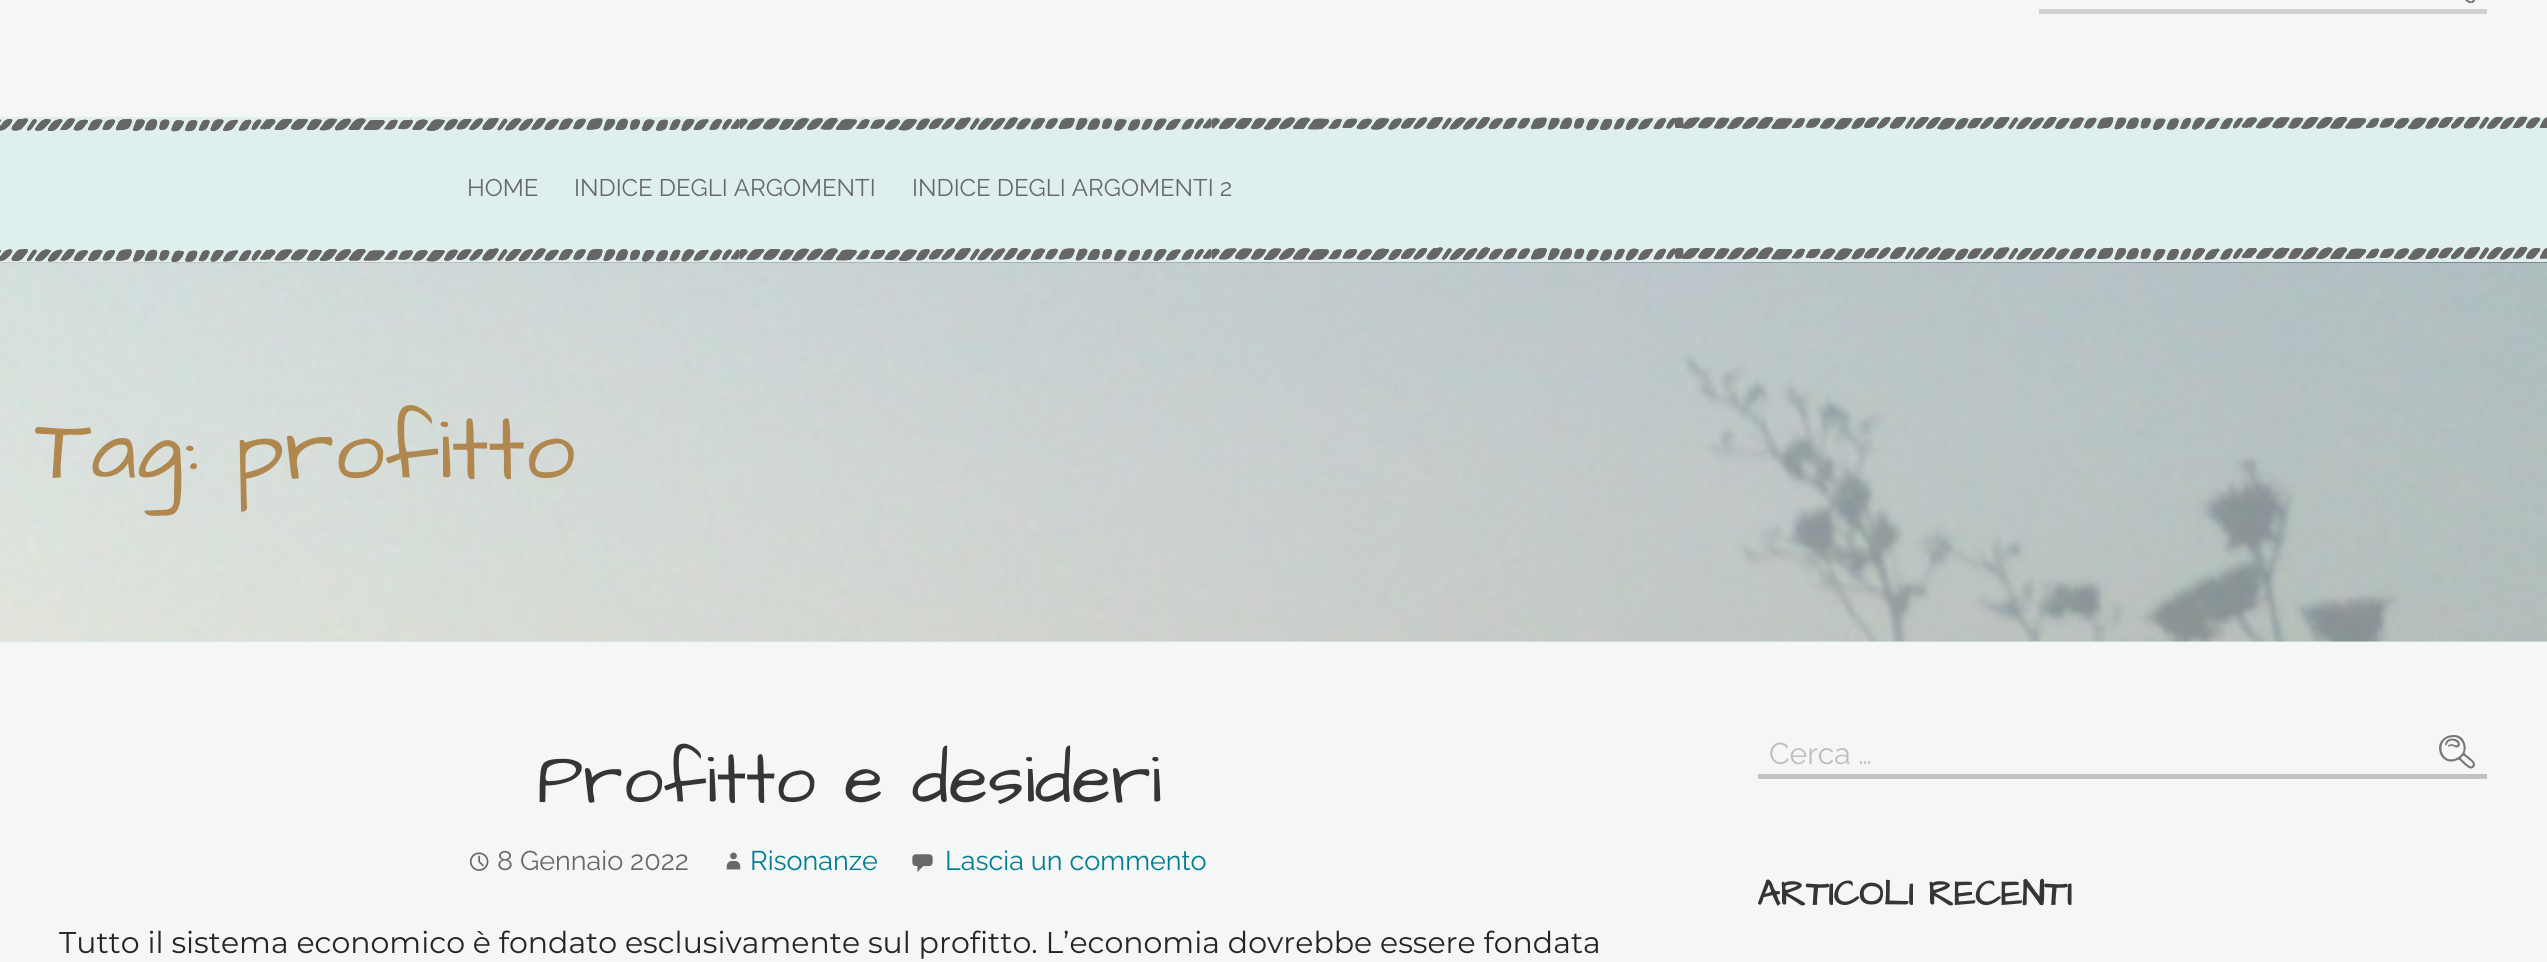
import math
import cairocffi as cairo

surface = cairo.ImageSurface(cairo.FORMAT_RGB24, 2547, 962)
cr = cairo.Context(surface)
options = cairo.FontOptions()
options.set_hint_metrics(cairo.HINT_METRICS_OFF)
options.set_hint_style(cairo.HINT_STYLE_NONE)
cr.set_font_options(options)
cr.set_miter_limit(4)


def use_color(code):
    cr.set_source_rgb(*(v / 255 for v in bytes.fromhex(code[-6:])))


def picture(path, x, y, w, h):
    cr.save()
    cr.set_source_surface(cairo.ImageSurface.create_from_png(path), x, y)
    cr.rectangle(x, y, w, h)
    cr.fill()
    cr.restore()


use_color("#f4f7f5")
cr.paint()
picture("img1.png", 2465, 0, 10, 3)
use_color("#d1d3d2")
cr.rectangle(2039, 9, 448, 5)
cr.fill()
use_color("#deefed")
cr.rectangle(0, 117, 2547, 145)
cr.fill()
picture("img2.png", 0, 116, 2547, 16)
cr.select_font_face("Raleway")
cr.set_font_size(24)
use_color("#686868")
cr.move_to(467, 196)
cr.show_text("HOME")
cr.move_to(574, 196)
cr.show_text("INDICE DEGLI ARGOMENTI")
cr.move_to(912, 196)
cr.show_text("INDICE DEGLI ARGOMENTI 2")
picture("img3.png", 0, 247, 2547, 15)
use_color("#daefed")
cr.rectangle(0, 641, 2547, 1)
cr.fill()
picture("img4.png", 0, 262, 2547, 380)
cr.select_font_face("Architects Daughter")
cr.set_font_size(90)
use_color("#af874f")
cr.move_to(35, 478)
cr.show_text("Tag: profitto")
cr.set_font_size(72)
use_color("#353535")
cr.move_to(537, 802)
cr.show_text("Profitto e desideri")
picture("img5.png", 469, 852, 20, 19)
cr.select_font_face("Raleway")
cr.set_font_size(27)
use_color("#686868")
cr.move_to(497, 870)
cr.show_text("8 Gennaio 2022")
picture("img6.png", 726, 852, 15, 18)
use_color("#007d91")
cr.move_to(750, 870)
cr.show_text("Risonanze")
picture("img7.png", 912, 854, 21, 18)
cr.move_to(945, 870)
cr.show_text("Lascia un commento")
cr.select_font_face("Montserrat")
cr.set_font_size(30)
use_color("#252525")
cr.move_to(59, 953)
cr.show_text("Tutto il sistema economico è fondato esclusivamente sul profitto. L’economia dovrebbe essere fondata")
use_color("#c0c3c1")
cr.rectangle(1758, 774, 729, 5)
cr.fill()
cr.select_font_face("Raleway")
use_color("#bcbfbd")
cr.move_to(1769, 764)
cr.show_text("Cerca …")
picture("img8.png", 2439, 735, 36, 34)
cr.select_font_face("Architects Daughter", cairo.FONT_SLANT_NORMAL, cairo.FONT_WEIGHT_BOLD)
cr.set_font_size(36)
use_color("#353535")
cr.move_to(1757, 905)
cr.show_text("ARTICOLI RECENTI")
surface.write_to_png("result.png")
